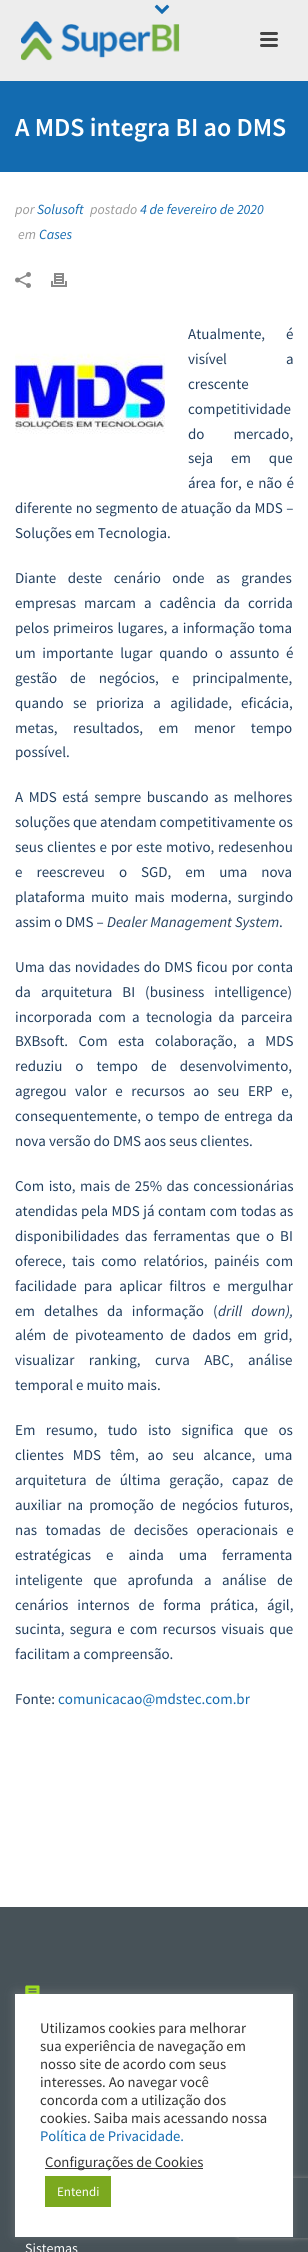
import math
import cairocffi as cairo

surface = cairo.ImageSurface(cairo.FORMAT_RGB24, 308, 2252)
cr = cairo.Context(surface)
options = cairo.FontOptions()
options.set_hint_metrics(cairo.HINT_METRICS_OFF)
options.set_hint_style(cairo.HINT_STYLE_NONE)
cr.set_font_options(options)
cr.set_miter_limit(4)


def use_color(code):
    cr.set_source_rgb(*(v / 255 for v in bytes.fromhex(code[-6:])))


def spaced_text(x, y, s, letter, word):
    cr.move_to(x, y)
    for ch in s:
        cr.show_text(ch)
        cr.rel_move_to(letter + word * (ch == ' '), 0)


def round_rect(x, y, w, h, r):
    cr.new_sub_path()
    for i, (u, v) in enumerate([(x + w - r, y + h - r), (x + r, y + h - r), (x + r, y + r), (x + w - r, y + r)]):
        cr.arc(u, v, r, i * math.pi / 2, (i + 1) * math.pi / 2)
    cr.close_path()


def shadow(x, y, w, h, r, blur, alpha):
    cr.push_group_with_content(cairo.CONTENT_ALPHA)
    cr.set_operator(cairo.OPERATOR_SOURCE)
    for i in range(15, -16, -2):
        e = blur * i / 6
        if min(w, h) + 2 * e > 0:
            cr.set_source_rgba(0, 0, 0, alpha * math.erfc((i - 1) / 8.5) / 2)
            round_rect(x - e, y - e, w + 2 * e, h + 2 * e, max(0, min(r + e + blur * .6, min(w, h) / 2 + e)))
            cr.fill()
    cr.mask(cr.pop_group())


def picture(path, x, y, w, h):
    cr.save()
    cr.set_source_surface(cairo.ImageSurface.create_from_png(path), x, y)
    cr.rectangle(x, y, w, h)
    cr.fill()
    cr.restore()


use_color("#ffffff")
cr.paint()
use_color("#136bb0")
cr.rectangle(0, 81, 308, 91)
cr.fill()
use_color("#ededed")
cr.rectangle(0, 0, 308, 81)
cr.fill()
picture("img1.png", 154, 4, 16, 10)
picture("img2.png", 21, 21, 159, 40)
use_color("#444444")
round_rect(260, 32, 18, 3, 1.5)
cr.fill()
round_rect(260, 38, 18, 3, 1.5)
cr.fill()
round_rect(260, 44, 18, 3, 1.5)
cr.fill()
cr.select_font_face("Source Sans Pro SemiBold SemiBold")
cr.set_font_size(26)
use_color("#ffffff")
cr.move_to(15, 136)
cr.show_text("A MDS integra BI ao DMS")
cr.select_font_face("Source Sans Pro", cairo.FONT_SLANT_ITALIC)
cr.set_font_size(14)
use_color("#999999")
cr.move_to(15, 214)
cr.show_text("por")
use_color("#136bb0")
cr.move_to(37, 214)
cr.show_text("Solusoft")
use_color("#999999")
cr.move_to(90, 214)
cr.show_text("postado")
use_color("#136bb0")
cr.move_to(140, 214)
cr.show_text("4 de fevereiro de 2020")
use_color("#999999")
cr.move_to(18, 239)
cr.show_text("em")
use_color("#136bb0")
cr.move_to(39, 239)
cr.show_text("Cases")
picture("img3.png", 15, 272, 16, 16)
picture("img4.png", 51, 273, 16, 14)
cr.select_font_face("Source Sans Pro")
cr.set_font_size(15)
use_color("#233f5e")
spaced_text(188, 339, "Atualmente, é", 0, 18)
picture("img5.png", 15, 353, 150, 81)
spaced_text(188, 364, "visível a", 0, 56)
cr.move_to(188, 389)
cr.show_text("crescente")
cr.move_to(188, 414)
cr.show_text("competitividade")
spaced_text(188, 439, "do mercado,", 0, 26)
spaced_text(188, 463, "seja em que", 0, 15)
spaced_text(188, 488, "área for, e não é", 0, 1.5)
spaced_text(15, 513, "diferente no segmento de atuação da MDS –", 0, 0.5)
cr.move_to(15, 538)
cr.show_text("Soluções em Tecnologia.")
spaced_text(15, 583, "Diante deste cenário onde as grandes", 0, 8.5)
spaced_text(15, 608, "empresas marcam a cadência da corrida", 0, 5)
spaced_text(15, 633, "pelos primeiros lugares, a informação toma", 0, 1)
spaced_text(15, 658, "um importante lugar quando o assunto é", 0, 3.75)
spaced_text(15, 683, "gestão de negócios, e principalmente,", 0, 10)
spaced_text(15, 708, "quando se prioriza a agilidade, eficácia,", 0, 6.25)
spaced_text(15, 733, "metas, resultados, em menor tempo", 0, 12.5)
cr.move_to(15, 757)
cr.show_text("possível.")
spaced_text(15, 802, "A MDS está sempre buscando as melhores", 0, 2.5)
cr.move_to(15, 827)
cr.show_text("soluções que atendam competitivamente os")
spaced_text(15, 852, "seus clientes e por este motivo, redesenhou", 0, 0.75)
spaced_text(15, 877, "e reescreveu o SGD, em uma nova", 0, 11)
spaced_text(15, 902, "plataforma muito mais moderna, surgindo", 0, 3)
cr.move_to(15, 927)
cr.show_text("assim o DMS –")
cr.select_font_face("Source Sans Pro", cairo.FONT_SLANT_ITALIC)
cr.move_to(107, 927)
cr.show_text("Dealer Management System")
cr.select_font_face("Source Sans Pro")
cr.move_to(279, 927)
cr.show_text(".")
spaced_text(15, 972, "Uma das novidades do DMS ficou por conta", 0, 1)
spaced_text(15, 997, "da arquitetura BI (business intelligence)", 0, 7)
spaced_text(15, 1022, "incorporada com a tecnologia da parceira", 0, 3.25)
spaced_text(15, 1046, "BXBsoft. Com esta colaboração, a MDS", 0, 7.5)
spaced_text(15, 1071, "reduziu o tempo de desenvolvimento,", 0, 10)
spaced_text(15, 1096, "agregou valor e recursos ao seu ERP e,", 0, 5.5)
spaced_text(15, 1121, "consequentemente, o tempo de entrega da", 0, 1.5)
cr.move_to(15, 1146)
cr.show_text("nova versão do DMS aos seus clientes.")
spaced_text(15, 1191, "Com isto, mais de 25% das concessionárias", 0, 1.5)
spaced_text(15, 1216, "atendidas pela MDS já contam com todas as", 0, 0.5)
spaced_text(15, 1241, "disponibilidades das ferramentas que o BI", 0, 3)
spaced_text(15, 1266, "oferece, tais como relatórios, painéis com", 0, 3.5)
spaced_text(15, 1291, "facilidade para aplicar filtros e mergulhar", 0, 4)
spaced_text(15, 1316, "em detalhes da informação (", 0, 6)
cr.select_font_face("Source Sans Pro", cairo.FONT_SLANT_ITALIC)
spaced_text(218, 1316, "drill down),", 0, 6)
cr.select_font_face("Source Sans Pro")
spaced_text(15, 1340, "além de pivoteamento de dados em grid,", 0, 3.5)
spaced_text(15, 1365, "visualizar ranking, curva ABC, análise", 0, 11.5)
cr.move_to(15, 1390)
cr.show_text("temporal e muito mais.")
spaced_text(15, 1435, "Em resumo, tudo isto significa que os", 0, 7.5)
spaced_text(15, 1460, "clientes MDS têm, ao seu alcance, uma", 0, 6)
spaced_text(15, 1485, "arquitetura de última geração, capaz de", 0, 5.75)
spaced_text(15, 1510, "auxiliar na promoção de negócios futuros,", 0, 3)
spaced_text(15, 1535, "nas tomadas de decisões operacionais e", 0, 5.5)
spaced_text(15, 1560, "estratégicas e ainda uma ferramenta", 0, 12)
spaced_text(15, 1585, "inteligente que aprofunda a análise de", 0, 7.5)
spaced_text(15, 1610, "cenários internos de forma prática, ágil,", 0, 6)
spaced_text(15, 1634, "sucinta, segura e com recursos visuais que", 0, 2.25)
cr.move_to(15, 1659)
cr.show_text("facilitam a compreensão.")
cr.move_to(15, 1704)
cr.show_text("Fonte:")
use_color("#136bb0")
cr.move_to(58, 1704)
cr.show_text("comunicacao@mdstec.com.br")
use_color("#475258")
cr.rectangle(0, 1907, 308, 345)
cr.fill()
picture("img6.png", 25, 1985, 15, 9)
cr.set_font_size(14)
use_color("#ffffff")
cr.move_to(25, 2253)
cr.show_text("Sistemas")
use_color("#acabab")
shadow(15, 1993, 278, 243, 0, 5, 0.3)
cr.save()
cr.set_fill_rule(cairo.FILL_RULE_EVEN_ODD)
cr.new_path()
cr.move_to(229, 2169)
cr.line_to(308, 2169)
cr.line_to(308, 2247)
cr.line_to(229, 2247)
cr.close_path()
cr.move_to(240, 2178)
cr.line_to(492, 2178)
cr.curve_to(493, 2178, 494, 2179, 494, 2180)
cr.line_to(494, 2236)
cr.curve_to(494, 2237, 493, 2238, 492, 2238)
cr.line_to(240, 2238)
cr.curve_to(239, 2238, 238, 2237, 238, 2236)
cr.line_to(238, 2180)
cr.curve_to(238, 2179, 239, 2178, 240, 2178)
cr.close_path()
cr.clip()
use_color("#808080")
shadow(238, 2178, 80, 60, 2, 2.5, 1)
cr.restore()
use_color("#ffffff")
cr.rectangle(15, 1994, 278, 243)
cr.fill()
cr.set_font_size(14.7)
use_color("#333333")
cr.move_to(40, 2033)
cr.show_text("Utilizamos cookies para melhorar")
cr.move_to(40, 2051)
cr.show_text("sua experiência de navegação em")
cr.move_to(40, 2069)
cr.show_text("nosso site de acordo com seus")
cr.move_to(40, 2087)
cr.show_text("interesses. Ao navegar você")
cr.move_to(40, 2105)
cr.show_text("concorda com a utilização dos")
cr.move_to(40, 2123)
cr.show_text("cookies. Saiba mais acessando nossa")
use_color("#136bb0")
cr.move_to(40, 2141)
cr.show_text("Política de Privacidade.")
use_color("#333333")
cr.rectangle(45, 2168, 158, 1)
cr.fill()
cr.move_to(45, 2167)
cr.show_text("Configurações de Cookies")
use_color("#7ba91f")
cr.rectangle(45, 2176, 66, 31)
cr.fill()
cr.set_font_size(13)
use_color("#ffffff")
cr.move_to(57, 2196)
cr.show_text("Entendi")
surface.write_to_png("result.png")
